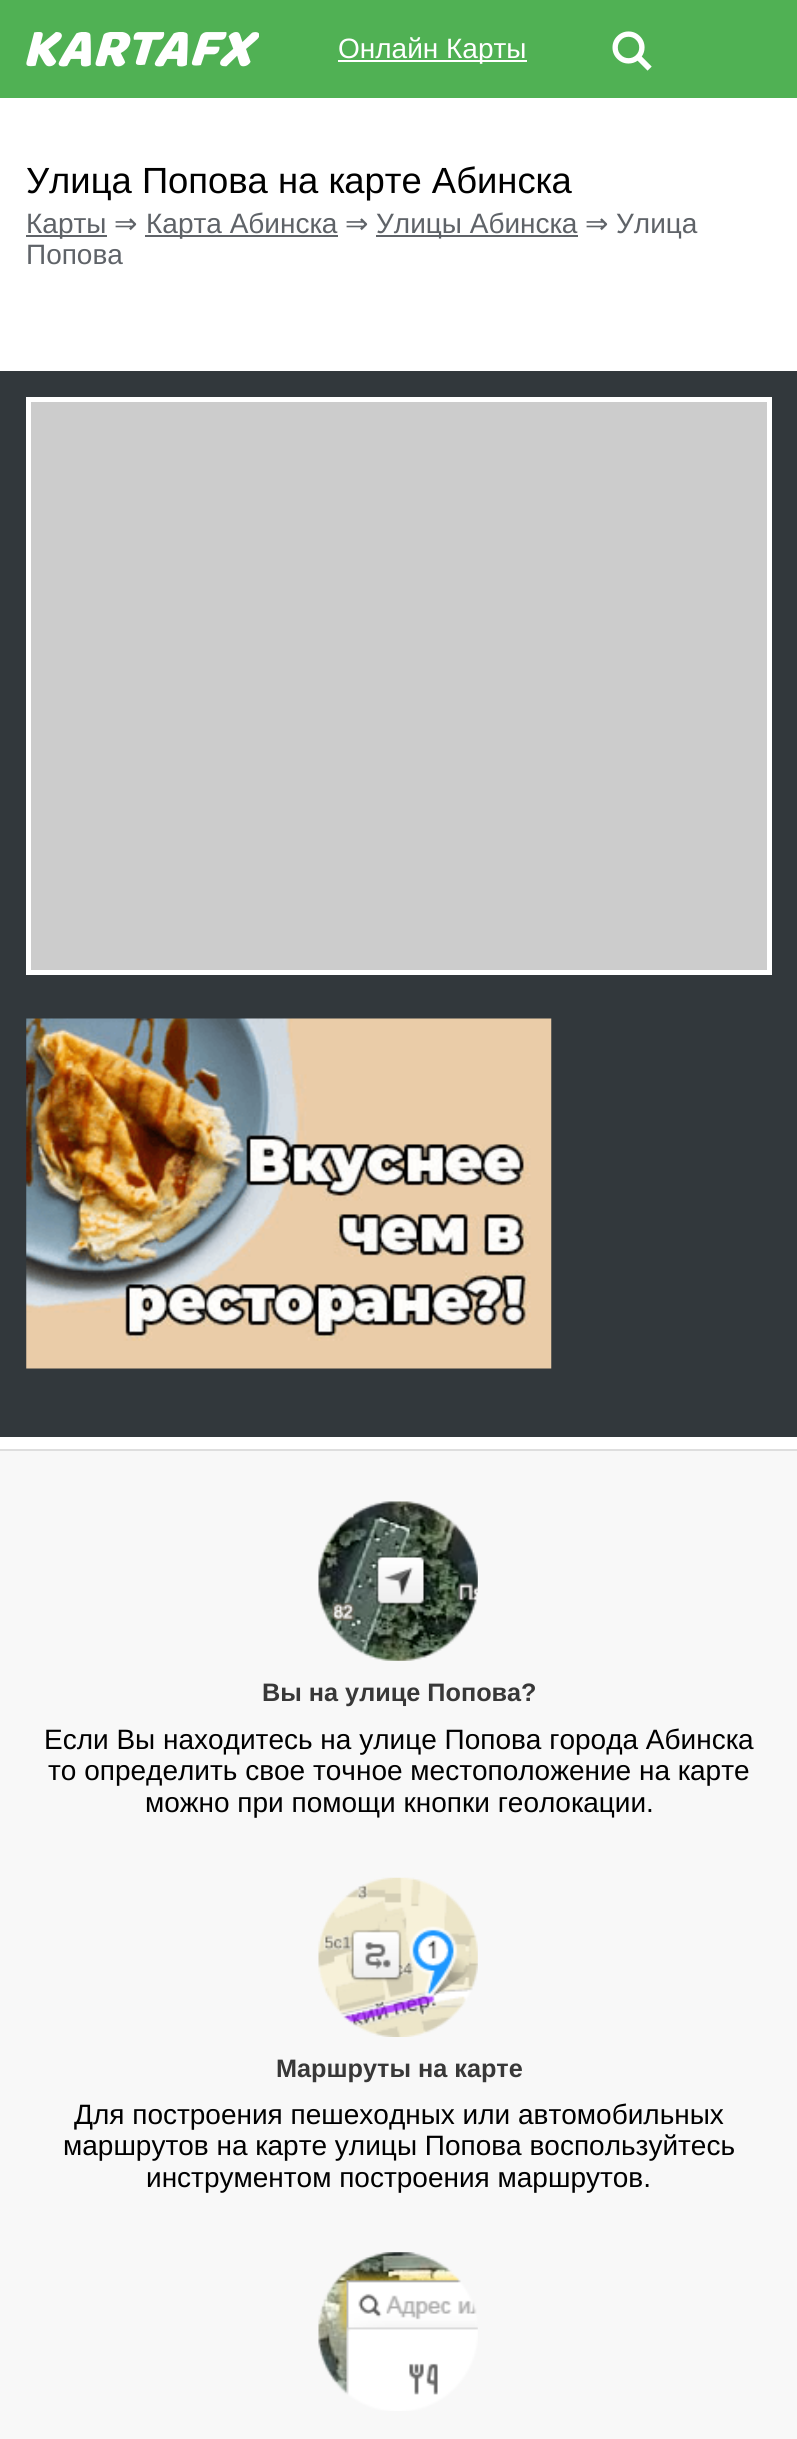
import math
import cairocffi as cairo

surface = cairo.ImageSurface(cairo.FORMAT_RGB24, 797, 2439)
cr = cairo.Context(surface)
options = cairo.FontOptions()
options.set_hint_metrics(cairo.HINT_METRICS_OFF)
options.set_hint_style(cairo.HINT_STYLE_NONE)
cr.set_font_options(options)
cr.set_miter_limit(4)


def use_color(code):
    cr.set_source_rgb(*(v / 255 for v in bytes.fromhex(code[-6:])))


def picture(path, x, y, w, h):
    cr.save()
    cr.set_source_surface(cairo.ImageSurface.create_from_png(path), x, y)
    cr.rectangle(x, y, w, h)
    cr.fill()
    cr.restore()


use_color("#ffffff")
cr.paint()
use_color("#50b154")
cr.rectangle(0, 0, 797, 98)
cr.fill()
picture("img1.png", 26, 32, 233, 35)
use_color("#ffffff")
cr.rectangle(338, 60, 189, 2)
cr.fill()
cr.select_font_face("Liberation Sans")
cr.set_font_size(28)
cr.move_to(338, 58)
cr.show_text("Онлайн Карты")
picture("img2.png", 612, 31, 40, 40)
cr.set_font_size(36.4)
use_color("#000000")
cr.move_to(26, 193)
cr.show_text("Улица Попова на карте Абинска")
use_color("#5f6368")
cr.rectangle(26, 235, 81, 2)
cr.fill()
cr.set_font_size(28)
cr.move_to(26, 233)
cr.show_text("Карты")
cr.select_font_face("DejaVu Sans")
cr.move_to(114, 233)
cr.show_text("⇒")
cr.rectangle(145, 235, 193, 2)
cr.fill()
cr.select_font_face("Liberation Sans")
cr.move_to(146, 233)
cr.show_text("Карта Абинска")
cr.select_font_face("DejaVu Sans")
cr.move_to(345, 233)
cr.show_text("⇒")
cr.rectangle(376, 235, 202, 2)
cr.fill()
cr.select_font_face("Liberation Sans")
cr.move_to(376, 233)
cr.show_text("Улицы Абинска")
cr.select_font_face("DejaVu Sans")
cr.move_to(585, 233)
cr.show_text("⇒")
cr.select_font_face("Liberation Sans")
cr.move_to(616, 233)
cr.show_text("Улица")
cr.move_to(26, 264)
cr.show_text("Попова")
use_color("#32383c")
cr.rectangle(0, 371, 797, 1066)
cr.fill()
use_color("#cccccc")
cr.rectangle(28.5, 399.5, 741, 573)
cr.fill_preserve()
use_color("#ffffff")
cr.set_line_width(5)
cr.stroke()
picture("img3.png", 26, 1018, 526, 351)
use_color("#f8f8f8")
cr.rectangle(0, 1451, 797, 988)
cr.fill()
use_color("#dedede")
cr.rectangle(0, 1449, 797, 2)
cr.fill()
picture("img4.png", 318, 1501, 160, 160)
cr.select_font_face("Liberation Sans", cairo.FONT_SLANT_NORMAL, cairo.FONT_WEIGHT_BOLD)
cr.set_font_size(25.25)
use_color("#383838")
cr.move_to(262, 1701)
cr.show_text("Вы на улице Попова?")
cr.select_font_face("Liberation Sans")
cr.set_font_size(28)
use_color("#000000")
cr.move_to(44, 1749)
cr.show_text("Если Вы находитесь на улице Попова города Абинска")
cr.move_to(48, 1780)
cr.show_text("то определить свое точное местоположение на карте")
cr.move_to(145, 1812)
cr.show_text("можно при помощи кнопки геолокации.")
picture("img5.png", 318, 1877, 160, 160)
cr.select_font_face("Liberation Sans", cairo.FONT_SLANT_NORMAL, cairo.FONT_WEIGHT_BOLD)
cr.set_font_size(25.25)
use_color("#383838")
cr.move_to(276, 2077)
cr.show_text("Маршруты на карте")
cr.select_font_face("Liberation Sans")
cr.set_font_size(28)
use_color("#000000")
cr.move_to(74, 2124)
cr.show_text("Для построения пешеходных или автомобильных")
cr.move_to(63, 2155)
cr.show_text("маршрутов на карте улицы Попова воспользуйтесь")
cr.move_to(146, 2187)
cr.show_text("инструментом построения маршрутов.")
picture("img6.png", 318, 2252, 160, 159)
surface.write_to_png("result.png")
